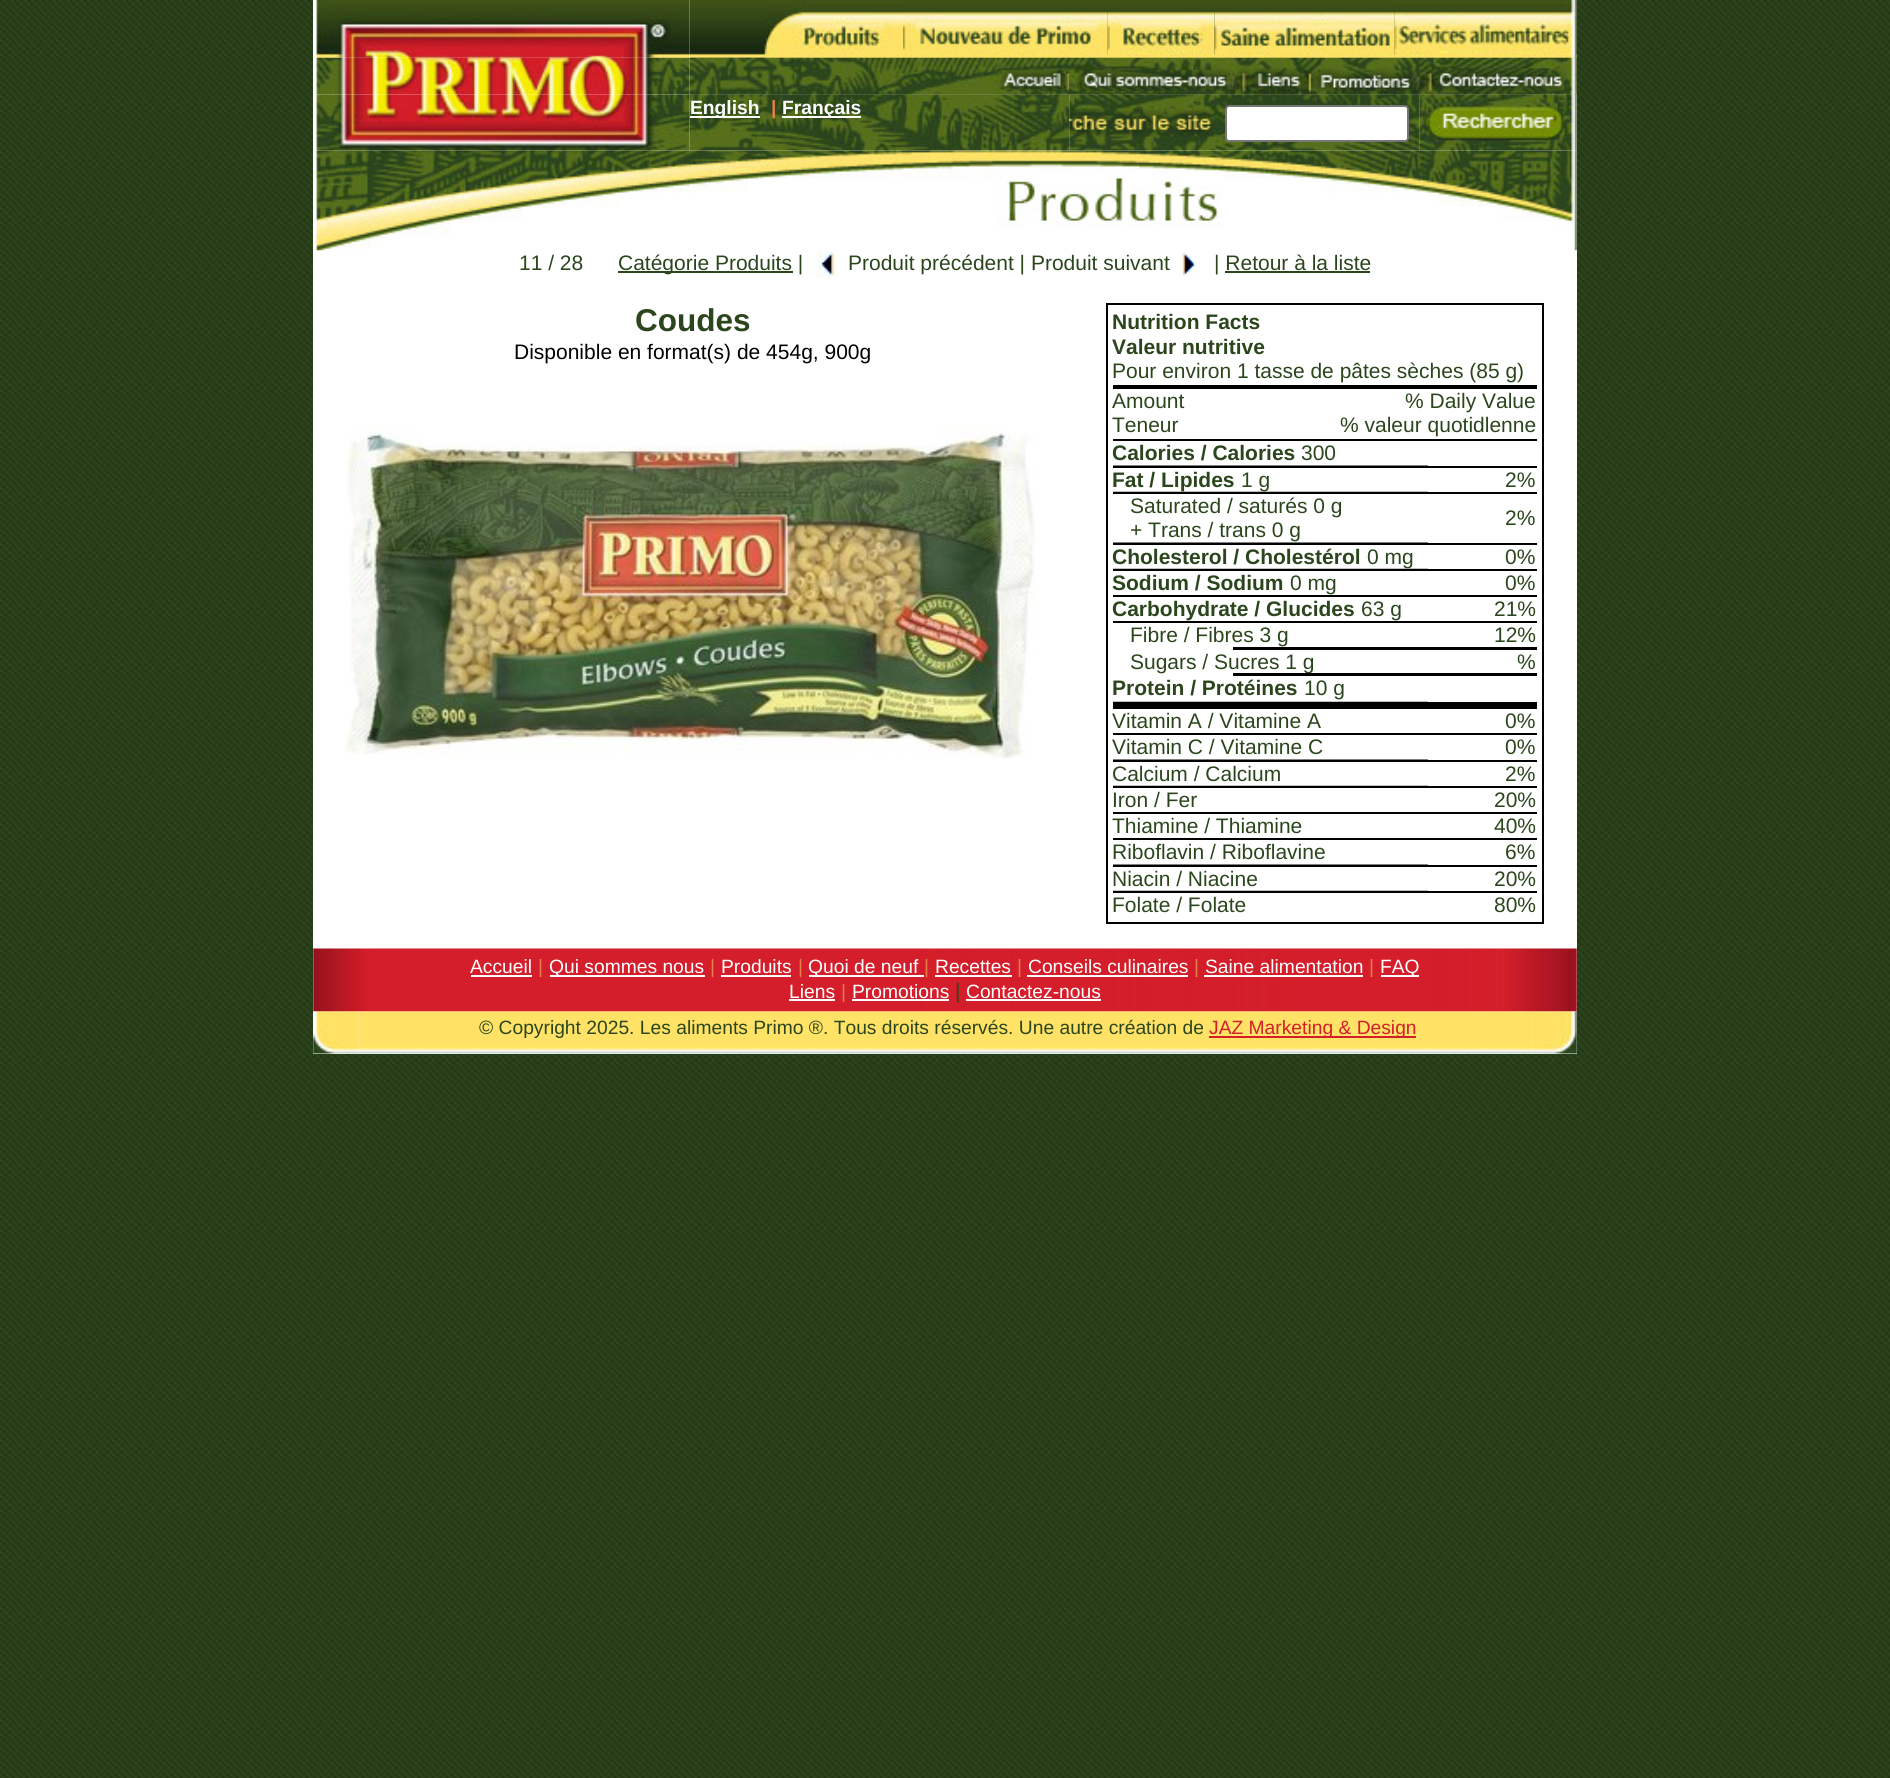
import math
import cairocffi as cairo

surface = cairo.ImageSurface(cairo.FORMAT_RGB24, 1890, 1778)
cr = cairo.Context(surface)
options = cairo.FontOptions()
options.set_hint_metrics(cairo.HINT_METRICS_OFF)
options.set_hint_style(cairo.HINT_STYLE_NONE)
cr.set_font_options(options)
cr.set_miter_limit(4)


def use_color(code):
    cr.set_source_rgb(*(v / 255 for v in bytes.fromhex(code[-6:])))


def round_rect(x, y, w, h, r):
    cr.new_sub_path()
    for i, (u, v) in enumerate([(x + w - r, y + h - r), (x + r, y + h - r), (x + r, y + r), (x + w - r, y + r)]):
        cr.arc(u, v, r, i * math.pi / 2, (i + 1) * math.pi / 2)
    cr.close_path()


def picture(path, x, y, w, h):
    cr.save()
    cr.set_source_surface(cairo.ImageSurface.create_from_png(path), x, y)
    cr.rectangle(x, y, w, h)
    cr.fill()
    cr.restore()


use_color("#ffffff")
cr.paint()
picture("img1.png", 0, 0, 1890, 1778)
use_color("#ffffff")
cr.rectangle(313, 0, 1264, 1054)
cr.fill()
picture("img3.png", 689, 0, 888, 58)
picture("img10.png", 689, 57, 888, 38)
picture("img2.png", 313, 0, 377, 58)
picture("img4.png", 764, 0, 139, 58)
picture("img5.png", 903, 9, 205, 49)
picture("img6.png", 1107, 9, 108, 49)
picture("img7.png", 1214, 9, 181, 49)
picture("img8.png", 1394, 0, 183, 58)
picture("img18.png", 689, 94, 381, 57)
picture("img9.png", 313, 57, 377, 38)
picture("img11.png", 691, 57, 307, 38)
picture("img12.png", 997, 57, 73, 38)
picture("img20.png", 1225, 94, 195, 57)
picture("img13.png", 1069, 57, 172, 38)
picture("img14.png", 1240, 57, 68, 38)
picture("img15.png", 1307, 57, 120, 38)
picture("img16.png", 1426, 57, 151, 38)
picture("img22.png", 313, 150, 1264, 101)
picture("img17.png", 313, 94, 377, 57)
cr.rectangle(690, 116, 70, 2)
cr.fill()
cr.select_font_face("Liberation Sans", cairo.FONT_SLANT_NORMAL, cairo.FONT_WEIGHT_BOLD)
cr.set_font_size(19.25)
cr.move_to(690, 114)
cr.show_text("English")
use_color("#e87f48")
cr.move_to(771, 114)
cr.show_text("|")
use_color("#ffffff")
cr.rectangle(782, 116, 79, 2)
cr.fill()
cr.move_to(782, 114)
cr.show_text("Français")
picture("img19.png", 1069, 94, 156, 57)
round_rect(1226, 106, 182, 35, 3)
cr.fill_preserve()
use_color("#767676")
cr.stroke()
picture("img21.png", 1419, 94, 158, 57)
picture("img23.png", 997, 171, 227, 57)
cr.select_font_face("Liberation Sans")
cr.set_font_size(21)
use_color("#2b461d")
cr.move_to(519, 270)
cr.show_text("11 / 28")
cr.rectangle(618, 271, 175, 2)
cr.fill()
cr.move_to(618, 270)
cr.show_text("Catégorie Produits |")
picture("img24.png", 817, 250, 21, 28)
cr.move_to(848, 270)
cr.show_text("Produit précédent | Produit suivant")
picture("img25.png", 1182, 253, 14, 23)
cr.move_to(1214, 270)
cr.show_text("| Retour à la liste")
cr.rectangle(1225, 271, 145, 2)
cr.fill()
cr.select_font_face("Liberation Sans", cairo.FONT_SLANT_NORMAL, cairo.FONT_WEIGHT_BOLD)
cr.set_font_size(31.5)
cr.move_to(635, 331)
cr.show_text("Coudes")
cr.select_font_face("Liberation Sans")
cr.set_font_size(21)
use_color("#000000")
cr.move_to(514, 359)
cr.show_text("Disponible en format(s) de 454g, 900g")
picture("img26.png", 345, 424, 691, 335)
cr.rectangle(1106, 303, 438, 621)
cr.fill()
use_color("#ffffff")
cr.rectangle(1108, 305, 434, 617)
cr.fill()
cr.select_font_face("Liberation Sans", cairo.FONT_SLANT_NORMAL, cairo.FONT_WEIGHT_BOLD)
use_color("#2b461d")
cr.move_to(1112, 329)
cr.show_text("Nutrition Facts")
cr.move_to(1112, 354)
cr.show_text("Valeur nutritive")
cr.select_font_face("Liberation Sans")
cr.move_to(1112, 378)
cr.show_text("Pour environ 1 tasse de pâtes sèches (85 g)")
use_color("#000000")
cr.rectangle(1113, 385, 424, 4)
cr.fill()
use_color("#2b461d")
cr.move_to(1112, 408)
cr.show_text("Amount")
cr.move_to(1405, 408)
cr.show_text("% Daily Value")
cr.move_to(1112, 432)
cr.show_text("Teneur")
cr.move_to(1340, 432)
cr.show_text("% valeur quotidlenne")
use_color("#000000")
cr.rectangle(1113, 439, 424, 2)
cr.fill()
cr.select_font_face("Liberation Sans", cairo.FONT_SLANT_NORMAL, cairo.FONT_WEIGHT_BOLD)
use_color("#2b461d")
cr.move_to(1112, 460)
cr.show_text("Calories / Calories")
cr.select_font_face("Liberation Sans")
cr.move_to(1301, 460)
cr.show_text("300")
use_color("#000000")
cr.rectangle(1113, 466, 424, 2)
cr.fill()
use_color("#808080")
cr.rectangle(1113, 465, 315, 1)
cr.fill()
cr.select_font_face("Liberation Sans", cairo.FONT_SLANT_NORMAL, cairo.FONT_WEIGHT_BOLD)
use_color("#2b461d")
cr.move_to(1112, 487)
cr.show_text("Fat / Lipides")
cr.select_font_face("Liberation Sans")
cr.move_to(1241, 487)
cr.show_text("1 g")
cr.move_to(1505, 487)
cr.show_text("2%")
use_color("#000000")
cr.rectangle(1113, 492, 424, 2)
cr.fill()
cr.set_source_rgba(0, 0, 0, 0.25)
cr.rectangle(1113, 491, 315, 1)
cr.fill()
use_color("#2b461d")
cr.move_to(1130, 513)
cr.show_text("Saturated / saturés 0 g")
cr.move_to(1130, 537)
cr.show_text("+ Trans / trans 0 g")
cr.move_to(1505, 525)
cr.show_text("2%")
use_color("#000000")
cr.rectangle(1113, 543, 424, 2)
cr.fill()
use_color("#808080")
cr.rectangle(1113, 542, 315, 1)
cr.fill()
cr.select_font_face("Liberation Sans", cairo.FONT_SLANT_NORMAL, cairo.FONT_WEIGHT_BOLD)
use_color("#2b461d")
cr.move_to(1112, 564)
cr.show_text("Cholesterol / Cholestérol")
cr.select_font_face("Liberation Sans")
cr.move_to(1367, 564)
cr.show_text("0 mg")
cr.move_to(1505, 564)
cr.show_text("0%")
use_color("#000000")
cr.rectangle(1113, 569, 424, 2)
cr.fill()
cr.set_source_rgba(0, 0, 0, 0.25)
cr.rectangle(1113, 568, 315, 1)
cr.fill()
cr.select_font_face("Liberation Sans", cairo.FONT_SLANT_NORMAL, cairo.FONT_WEIGHT_BOLD)
use_color("#2b461d")
cr.move_to(1112, 590)
cr.show_text("Sodium / Sodium")
cr.select_font_face("Liberation Sans")
cr.move_to(1290, 590)
cr.show_text("0 mg")
cr.move_to(1505, 590)
cr.show_text("0%")
use_color("#000000")
cr.rectangle(1113, 595, 424, 2)
cr.fill()
cr.select_font_face("Liberation Sans", cairo.FONT_SLANT_NORMAL, cairo.FONT_WEIGHT_BOLD)
use_color("#2b461d")
cr.move_to(1112, 616)
cr.show_text("Carbohydrate / Glucides")
cr.select_font_face("Liberation Sans")
cr.move_to(1361, 616)
cr.show_text("63 g")
cr.move_to(1494, 616)
cr.show_text("21%")
use_color("#000000")
cr.rectangle(1113, 621, 424, 2)
cr.fill()
use_color("#2b461d")
cr.move_to(1130, 642)
cr.show_text("Fibre / Fibres 3 g")
cr.move_to(1494, 642)
cr.show_text("12%")
use_color("#000000")
cr.rectangle(1233, 647, 304, 3)
cr.fill()
use_color("#2b461d")
cr.move_to(1130, 669)
cr.show_text("Sugars / Sucres 1 g")
cr.move_to(1517, 669)
cr.show_text("%")
use_color("#000000")
cr.rectangle(1233, 673, 304, 3)
cr.fill()
cr.select_font_face("Liberation Sans", cairo.FONT_SLANT_NORMAL, cairo.FONT_WEIGHT_BOLD)
use_color("#2b461d")
cr.move_to(1112, 695)
cr.show_text("Protein / Protéines")
cr.select_font_face("Liberation Sans")
cr.move_to(1304, 695)
cr.show_text("10 g")
use_color("#000000")
cr.rectangle(1113, 702, 424, 7)
cr.fill()
use_color("#bfbfbf")
cr.rectangle(1113, 701, 315, 1)
cr.fill()
use_color("#2b461d")
cr.move_to(1112, 728)
cr.show_text("Vitamin A / Vitamine A")
cr.move_to(1505, 728)
cr.show_text("0%")
use_color("#000000")
cr.rectangle(1113, 733, 424, 2)
cr.fill()
use_color("#2b461d")
cr.move_to(1112, 754)
cr.show_text("Vitamin C / Vitamine C")
cr.move_to(1505, 754)
cr.show_text("0%")
use_color("#000000")
cr.rectangle(1113, 760, 424, 2)
cr.fill()
use_color("#808080")
cr.rectangle(1113, 759, 315, 1)
cr.fill()
use_color("#2b461d")
cr.move_to(1112, 781)
cr.show_text("Calcium / Calcium")
cr.move_to(1505, 781)
cr.show_text("2%")
use_color("#000000")
cr.rectangle(1113, 786, 424, 2)
cr.fill()
use_color("#bfbfbf")
cr.rectangle(1113, 785, 315, 1)
cr.fill()
use_color("#2b461d")
cr.move_to(1112, 807)
cr.show_text("Iron / Fer")
cr.move_to(1494, 807)
cr.show_text("20%")
use_color("#000000")
cr.rectangle(1113, 812, 424, 2)
cr.fill()
use_color("#2b461d")
cr.move_to(1112, 833)
cr.show_text("Thiamine / Thiamine")
cr.move_to(1494, 833)
cr.show_text("40%")
use_color("#000000")
cr.rectangle(1113, 838, 424, 2)
cr.fill()
use_color("#2b461d")
cr.move_to(1112, 859)
cr.show_text("Riboflavin / Riboflavine")
cr.move_to(1505, 859)
cr.show_text("6%")
use_color("#000000")
cr.rectangle(1113, 865, 424, 2)
cr.fill()
use_color("#808080")
cr.rectangle(1113, 864, 315, 1)
cr.fill()
use_color("#2b461d")
cr.move_to(1112, 886)
cr.show_text("Niacin / Niacine")
cr.move_to(1494, 886)
cr.show_text("20%")
use_color("#000000")
cr.rectangle(1113, 891, 424, 2)
cr.fill()
use_color("#bfbfbf")
cr.rectangle(1113, 890, 315, 1)
cr.fill()
use_color("#2b461d")
cr.move_to(1112, 912)
cr.show_text("Folate / Folate")
cr.move_to(1494, 912)
cr.show_text("80%")
picture("img27.png", 313, 948, 1264, 64)
cr.set_font_size(19.25)
use_color("#ffffff")
cr.move_to(470, 973)
cr.show_text("Accueil")
cr.rectangle(471, 975, 61, 2)
cr.fill()
use_color("#e87f48")
cr.move_to(538, 973)
cr.show_text("|")
use_color("#ffffff")
cr.rectangle(550, 975, 155, 2)
cr.fill()
cr.move_to(549, 973)
cr.show_text("Qui sommes nous")
use_color("#e87f48")
cr.move_to(710, 973)
cr.show_text("|")
use_color("#ffffff")
cr.move_to(721, 973)
cr.show_text("Produits")
cr.rectangle(721, 975, 70, 2)
cr.fill()
use_color("#e87f48")
cr.move_to(798, 973)
cr.show_text("|")
use_color("#ffffff")
cr.rectangle(809, 975, 115, 2)
cr.fill()
cr.move_to(808, 973)
cr.show_text("Quoi de neuf")
use_color("#e87f48")
cr.move_to(924, 973)
cr.show_text("|")
use_color("#ffffff")
cr.move_to(935, 973)
cr.show_text("Recettes")
cr.rectangle(935, 975, 77, 2)
cr.fill()
use_color("#e87f48")
cr.move_to(1017, 973)
cr.show_text("|")
use_color("#ffffff")
cr.move_to(1028, 973)
cr.show_text("Conseils culinaires")
cr.rectangle(1027, 975, 161, 2)
cr.fill()
use_color("#e87f48")
cr.move_to(1194, 973)
cr.show_text("|")
use_color("#ffffff")
cr.move_to(1205, 973)
cr.show_text("Saine alimentation")
cr.rectangle(1204, 975, 159, 2)
cr.fill()
use_color("#e87f48")
cr.move_to(1369, 973)
cr.show_text("|")
use_color("#ffffff")
cr.rectangle(1381, 975, 38, 2)
cr.fill()
cr.move_to(1380, 973)
cr.show_text("FAQ")
cr.move_to(789, 998)
cr.show_text("Liens")
cr.rectangle(789, 999, 46, 2)
cr.fill()
use_color("#e87f48")
cr.move_to(841, 998)
cr.show_text("|")
use_color("#ffffff")
cr.move_to(852, 998)
cr.show_text("Promotions")
cr.rectangle(852, 999, 97, 2)
cr.fill()
cr.set_font_size(21)
use_color("#2b461d")
cr.move_to(955, 998)
cr.show_text("|")
cr.set_font_size(19.25)
use_color("#ffffff")
cr.move_to(966, 998)
cr.show_text("Contactez-nous")
cr.rectangle(966, 999, 135, 2)
cr.fill()
picture("img29.png", 358, 1011, 1174, 43)
picture("img28.png", 313, 1011, 46, 43)
use_color("#2b461d")
cr.move_to(479, 1034)
cr.show_text("© Copyright 2025. Les aliments Primo ®. Tous droits réservés. Une autre création de")
use_color("#d41e2b")
cr.rectangle(1209, 1036, 207, 2)
cr.fill()
cr.move_to(1209, 1034)
cr.show_text("JAZ Marketing & Design")
picture("img30.png", 1531, 1011, 46, 43)
surface.write_to_png("result.png")
